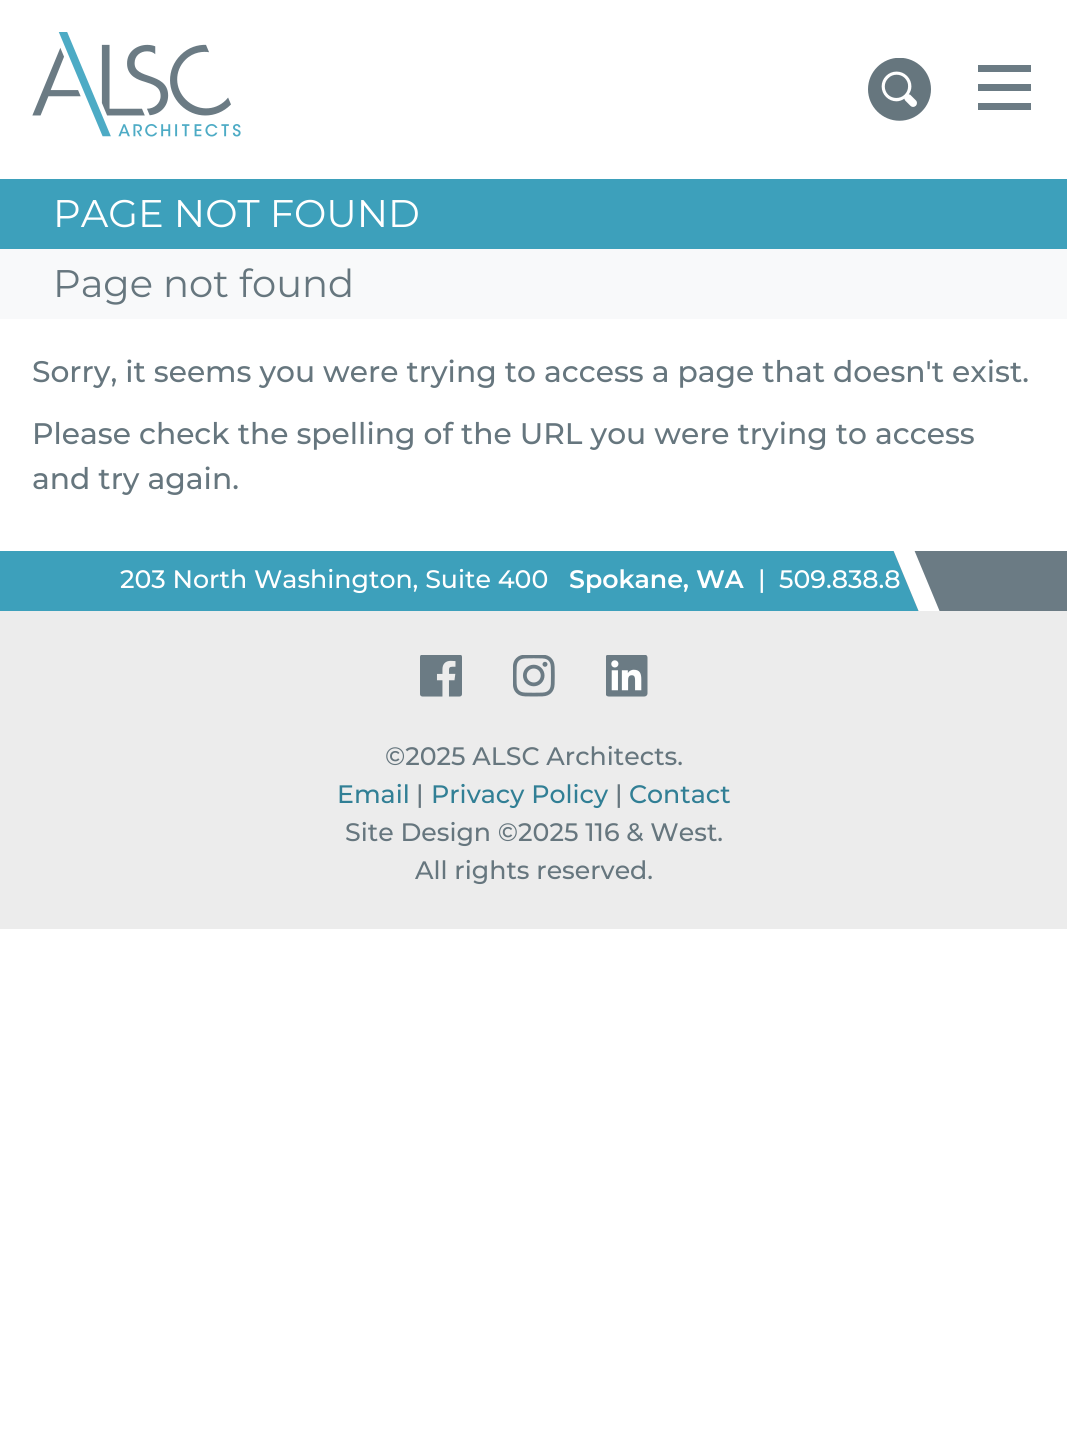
import math
import cairocffi as cairo

surface = cairo.ImageSurface(cairo.FORMAT_RGB24, 1067, 1452)
cr = cairo.Context(surface)
options = cairo.FontOptions()
options.set_hint_metrics(cairo.HINT_METRICS_OFF)
options.set_hint_style(cairo.HINT_STYLE_NONE)
cr.set_font_options(options)
cr.set_miter_limit(4)


def use_color(code):
    cr.set_source_rgb(*(v / 255 for v in bytes.fromhex(code[-6:])))


def picture(path, x, y, w, h):
    cr.save()
    cr.set_source_surface(cairo.ImageSurface.create_from_png(path), x, y)
    cr.rectangle(x, y, w, h)
    cr.fill()
    cr.restore()


use_color("#ffffff")
cr.paint()
picture("img1.png", 32, 32, 209, 105)
picture("img2.png", 868, 58, 63, 63)
use_color("#6b7b84")
cr.rectangle(978, 65, 53, 7)
cr.fill()
cr.rectangle(978, 84, 53, 7)
cr.fill()
cr.rectangle(978, 103, 53, 7)
cr.fill()
use_color("#f8f9fa")
cr.rectangle(0, 249, 1067, 70)
cr.fill()
use_color("#3da0bb")
cr.rectangle(0, 179, 1067, 70)
cr.fill()
cr.select_font_face("Montserrat")
cr.set_font_size(38.5)
use_color("#ffffff")
cr.move_to(53, 227)
cr.show_text("PAGE NOT FOUND")
use_color("#66767e")
cr.move_to(53, 297)
cr.show_text("Page not found")
cr.select_font_face("Montserrat Medium")
cr.set_font_size(29.75)
cr.move_to(32, 382)
cr.show_text("Sorry, it seems you were trying to access a page that doesn't exist.")
cr.move_to(32, 444)
cr.show_text("Please check the spelling of the URL you were trying to access")
cr.move_to(32, 489)
cr.show_text("and try again.")
use_color("#3da0bb")
cr.rectangle(0, 551, 919, 60)
cr.fill()
cr.set_font_size(25.25)
use_color("#ffffff")
cr.move_to(120, 588)
cr.show_text("203 North Washington, Suite 400")
cr.select_font_face("Montserrat SemiBold")
cr.move_to(569, 588)
cr.show_text("Spokane, WA")
cr.select_font_face("Montserrat Medium")
cr.move_to(758, 588)
cr.show_text("|")
cr.move_to(779, 588)
cr.show_text("509.838.8")
cr.save()
cr.rectangle(0, 551, 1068, 60)
cr.clip()
use_color("#6b7b84")
cr.new_path()
cr.move_to(872, 499)
cr.line_to(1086, 499)
cr.line_to(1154, 665)
cr.line_to(941, 665)
cr.close_path()
cr.fill()
use_color("#ffffff")
cr.new_path()
cr.move_to(872, 499)
cr.line_to(893, 499)
cr.line_to(962, 665)
cr.line_to(941, 665)
cr.close_path()
cr.fill()
cr.restore()
use_color("#ececec")
cr.rectangle(0, 611, 1067, 318)
cr.fill()
picture("img3.png", 420, 655, 42, 42)
picture("img4.png", 513, 655, 42, 42)
picture("img5.png", 606, 655, 42, 42)
use_color("#66767e")
cr.move_to(385, 765)
cr.show_text("©2025 ALSC Architects.")
use_color("#317f95")
cr.move_to(337, 803)
cr.show_text("Email")
use_color("#66767e")
cr.move_to(416, 803)
cr.show_text("|")
use_color("#317f95")
cr.move_to(431, 803)
cr.show_text("Privacy Policy")
use_color("#66767e")
cr.move_to(615, 803)
cr.show_text("|")
use_color("#317f95")
cr.move_to(629, 803)
cr.show_text("Contact")
use_color("#66767e")
cr.move_to(345, 841)
cr.show_text("Site Design ©2025 116 & West.")
cr.move_to(415, 879)
cr.show_text("All rights reserved.")
surface.write_to_png("result.png")
